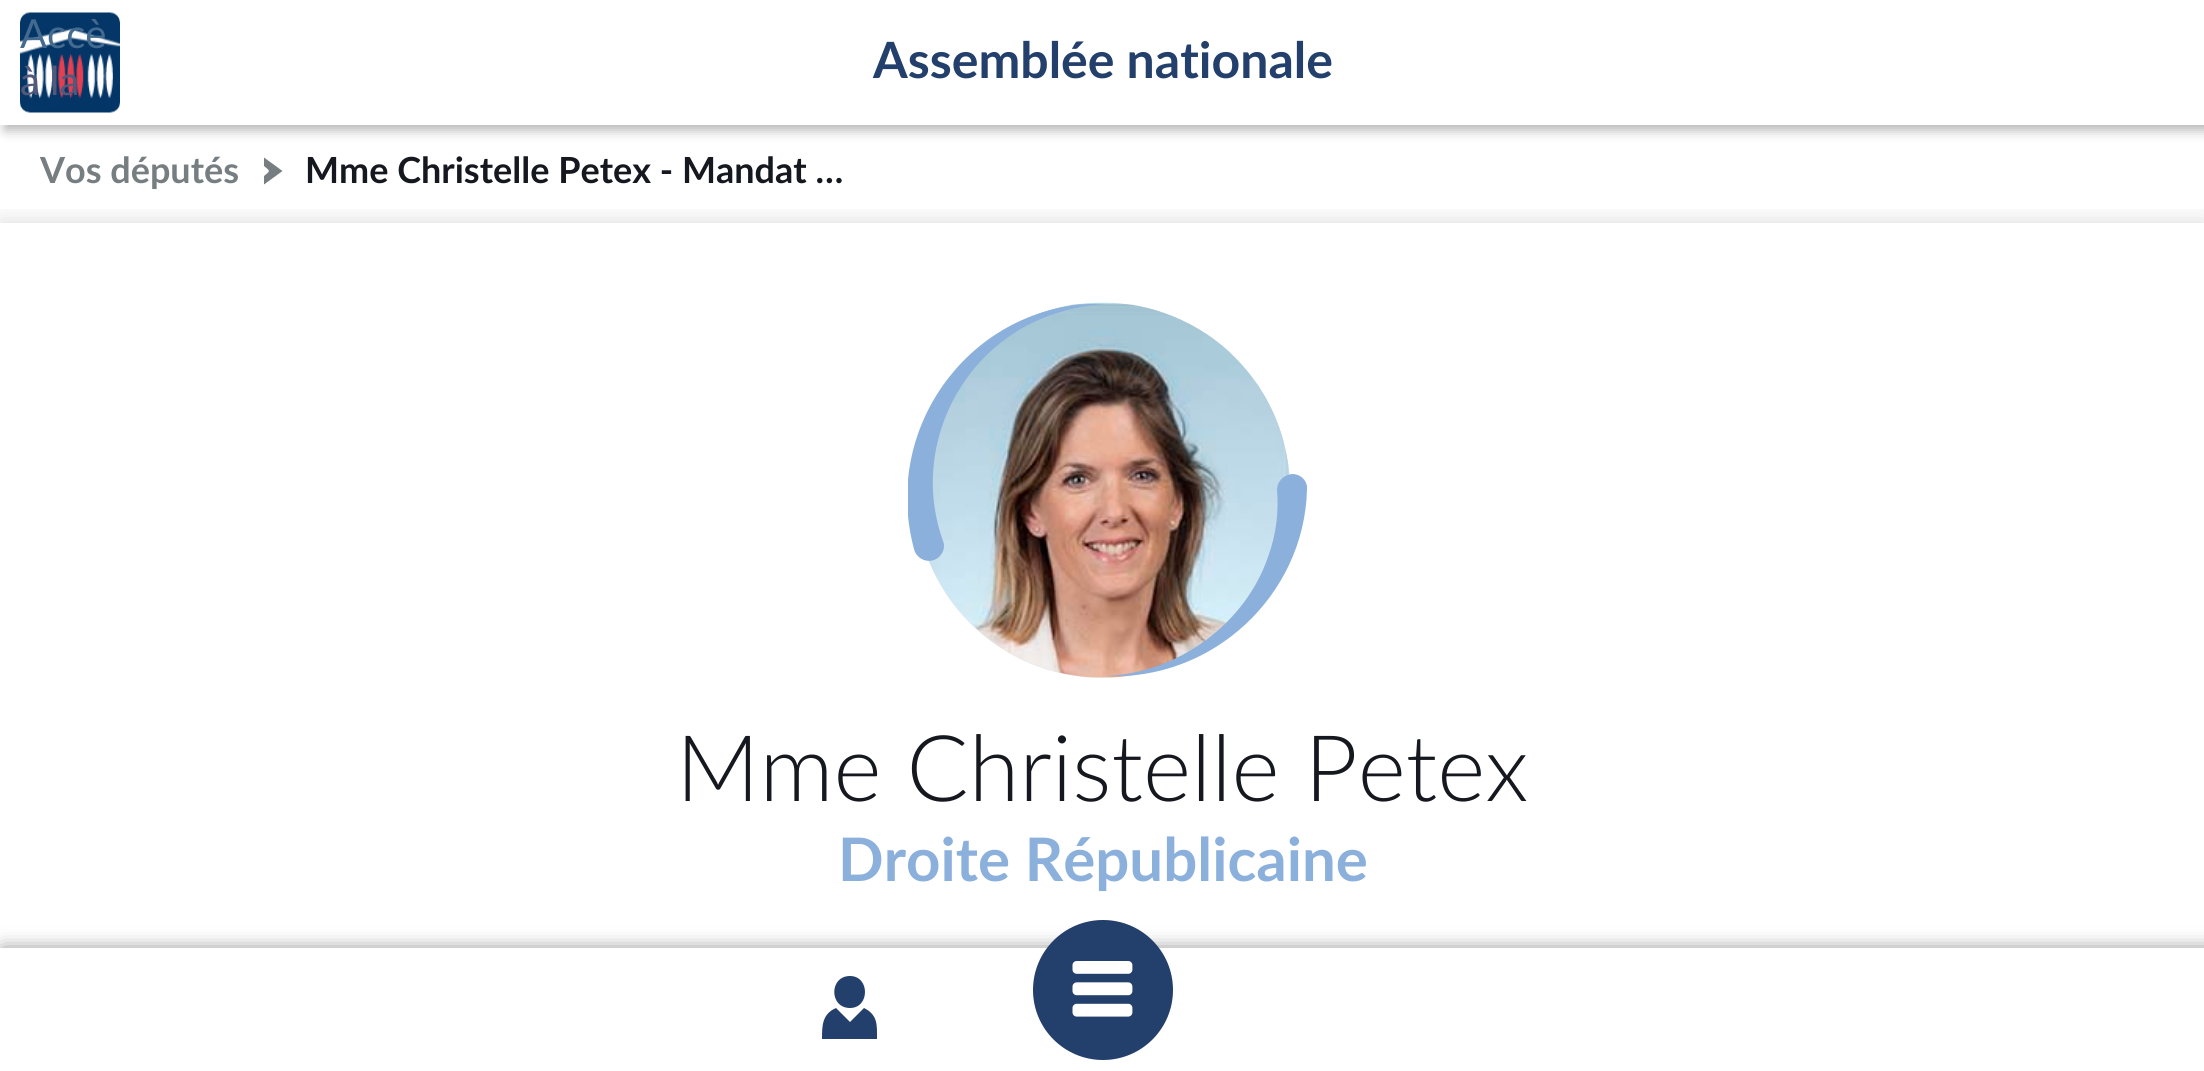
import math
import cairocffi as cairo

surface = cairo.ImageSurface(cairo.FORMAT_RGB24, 2204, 1071)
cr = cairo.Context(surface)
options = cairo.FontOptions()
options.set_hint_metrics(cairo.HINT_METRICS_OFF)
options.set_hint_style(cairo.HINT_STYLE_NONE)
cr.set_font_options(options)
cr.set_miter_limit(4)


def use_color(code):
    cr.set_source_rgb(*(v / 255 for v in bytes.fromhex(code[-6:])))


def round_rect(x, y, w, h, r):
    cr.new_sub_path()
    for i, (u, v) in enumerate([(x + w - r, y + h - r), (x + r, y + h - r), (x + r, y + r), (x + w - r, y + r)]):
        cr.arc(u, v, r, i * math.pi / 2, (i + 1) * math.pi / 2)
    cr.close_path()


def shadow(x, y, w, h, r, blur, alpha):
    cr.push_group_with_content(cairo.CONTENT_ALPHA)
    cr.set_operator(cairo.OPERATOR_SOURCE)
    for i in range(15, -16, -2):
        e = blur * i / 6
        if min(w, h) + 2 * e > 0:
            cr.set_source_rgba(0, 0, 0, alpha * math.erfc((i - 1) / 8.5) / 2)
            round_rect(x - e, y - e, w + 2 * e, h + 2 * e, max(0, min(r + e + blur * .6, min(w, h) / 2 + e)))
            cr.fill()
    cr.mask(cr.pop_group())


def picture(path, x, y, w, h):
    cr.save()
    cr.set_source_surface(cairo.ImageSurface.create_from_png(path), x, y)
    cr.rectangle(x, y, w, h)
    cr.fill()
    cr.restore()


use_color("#ffffff")
cr.paint()
use_color("#000000")
shadow(5, 5, 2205, 125, 0, 6, 0.3)
use_color("#ffffff")
cr.rectangle(0, 0, 2204, 125)
cr.fill()
picture("img1.png", 20, 12, 100, 101)
cr.select_font_face("Lato")
cr.set_font_size(40)
use_color("#456a8f")
cr.move_to(20, 48)
cr.show_text("Accè")
use_color("#56587b")
cr.move_to(20, 95)
cr.show_text("à la")
cr.select_font_face("Lato", cairo.FONT_SLANT_NORMAL, cairo.FONT_WEIGHT_BOLD)
cr.set_font_size(50)
use_color("#233f6b")
cr.move_to(873, 78)
cr.show_text("Assemblée nationale")
cr.set_font_size(36)
use_color("#777e82")
cr.move_to(40, 183)
cr.show_text("Vos députés")
cr.new_path()
cr.move_to(264, 157.5)
cr.line_to(264, 166)
cr.curve_to(270.5, 171.5, 270.5, 170.5, 264, 176)
cr.line_to(264, 184.5)
cr.line_to(282.5, 171)
cr.close_path()
cr.fill()
use_color("#15181e")
cr.move_to(305, 183)
cr.show_text("Mme Christelle Petex - Mandat …")
cr.save()
cr.rectangle(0, 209, 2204, 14)
cr.clip()
use_color("#000000")
shadow(0, 223, 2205, 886, 0, 12.5, 0.15)
cr.restore()
use_color("#e6e6e6")
cr.arc(1102.5, 490.5, 187.5, 0, 2 * math.pi)
cr.fill()
picture("img2.png", 928, 302, 362, 376)
cr.save()
cr.rectangle(908, 290, 400, 400)
cr.clip()
use_color("#8cb0dc")
cr.new_path()
cr.move_to(914, 549)
cr.curve_to(880, 423, 977, 299, 1106, 304)
cr.curve_to(1085, 305, 1063, 310, 1043, 318)
cr.curve_to(957, 353, 911, 452, 943, 541)
cr.curve_to(946, 548, 942, 557, 934, 560)
cr.curve_to(926, 563, 916, 558, 914, 549)
cr.close_path()
cr.fill()
cr.restore()
use_color("#8cb0dc")
cr.new_path()
cr.move_to(1307, 490)
cr.curve_to(1304, 596, 1212, 681, 1106, 676)
cr.curve_to(1178, 673, 1245, 624, 1268, 557)
cr.curve_to(1276, 535, 1279, 512, 1277, 490)
cr.curve_to(1277, 482, 1283, 475, 1292, 474)
cr.curve_to(1301, 474, 1308, 481, 1307, 490)
cr.close_path()
cr.fill()
cr.select_font_face("Lato Light")
cr.set_font_size(92)
use_color("#15181e")
cr.move_to(676, 801)
cr.show_text("Mme Christelle Petex")
cr.select_font_face("Lato", cairo.FONT_SLANT_NORMAL, cairo.FONT_WEIGHT_BOLD)
cr.set_font_size(60)
use_color("#8cb0dc")
cr.move_to(838, 881)
cr.show_text("Droite Républicaine")
use_color("#000000")
shadow(3, 950, 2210, 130, 0, 10, 0.5)
use_color("#ffffff")
cr.rectangle(0, 948, 2204, 123)
cr.fill()
use_color("#233f6b")
cr.new_path()
cr.move_to(864, 1008)
cr.line_to(850, 1022)
cr.line_to(836, 1008)
cr.curve_to(822, 1014, 822, 1026, 822, 1039)
cr.line_to(877, 1039)
cr.curve_to(877, 1025, 878, 1015, 864, 1008)
cr.close_path()
cr.move_to(850, 1008)
cr.curve_to(870, 1008, 870, 976, 850, 976)
cr.curve_to(829, 976, 829, 1008, 850, 1008)
cr.close_path()
cr.fill()
cr.arc(1103, 990, 70, 0, 2 * math.pi)
cr.fill()
picture("img3.png", 1072, 961, 61, 56)
surface.write_to_png("result.png")
